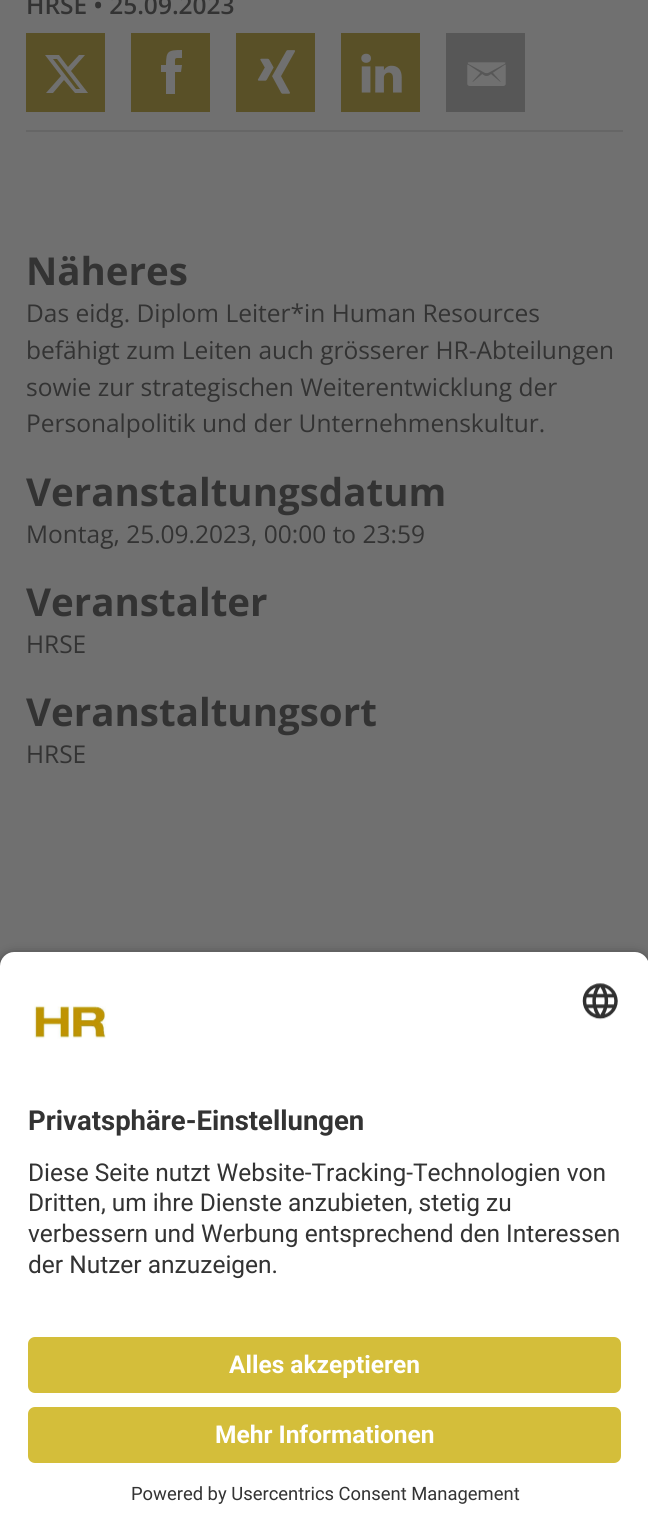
import math
import cairocffi as cairo

surface = cairo.ImageSurface(cairo.FORMAT_RGB24, 648, 1532)
cr = cairo.Context(surface)
options = cairo.FontOptions()
options.set_hint_metrics(cairo.HINT_METRICS_OFF)
options.set_hint_style(cairo.HINT_STYLE_NONE)
cr.set_font_options(options)
cr.set_miter_limit(4)


def use_color(code):
    cr.set_source_rgb(*(v / 255 for v in bytes.fromhex(code[-6:])))


def round_rect(x, y, w, h, r):
    cr.new_sub_path()
    for i, (u, v) in enumerate([(x + w - r, y + h - r), (x + r, y + h - r), (x + r, y + r), (x + w - r, y + r)]):
        cr.arc(u, v, r, i * math.pi / 2, (i + 1) * math.pi / 2)
    cr.close_path()


def shadow(x, y, w, h, r, blur, alpha):
    cr.push_group_with_content(cairo.CONTENT_ALPHA)
    cr.set_operator(cairo.OPERATOR_SOURCE)
    for i in range(15, -16, -2):
        e = blur * i / 6
        if min(w, h) + 2 * e > 0:
            cr.set_source_rgba(0, 0, 0, alpha * math.erfc((i - 1) / 8.5) / 2)
            round_rect(x - e, y - e, w + 2 * e, h + 2 * e, max(0, min(r + e + blur * .6, min(w, h) / 2 + e)))
            cr.fill()
    cr.mask(cr.pop_group())


def picture(path, x, y, w, h):
    cr.save()
    cr.set_source_surface(cairo.ImageSurface.create_from_png(path), x, y)
    cr.rectangle(x, y, w, h)
    cr.fill()
    cr.restore()


use_color("#707070")
cr.paint()
use_color("#666666")
cr.rectangle(26, 130, 597, 2)
cr.fill()
cr.select_font_face("Open Sans SemiBold")
cr.set_font_size(24.5)
use_color("#333333")
cr.move_to(26, 14)
cr.show_text("HRSE • 25.09.2023")
use_color("#595027")
cr.rectangle(26, 33, 79, 79)
cr.fill()
use_color("#707070")
cr.new_path()
cr.move_to(79, 55)
cr.line_to(85, 55)
cr.line_to(71, 71)
cr.line_to(88, 93)
cr.line_to(75, 93)
cr.line_to(64, 80)
cr.line_to(53, 93)
cr.line_to(46, 93)
cr.line_to(61, 76)
cr.line_to(45, 55)
cr.line_to(59, 55)
cr.line_to(68, 67)
cr.close_path()
cr.move_to(76, 89)
cr.line_to(80, 89)
cr.line_to(57, 59)
cr.line_to(53, 59)
cr.close_path()
cr.fill()
use_color("#595027")
cr.rectangle(131, 33, 79, 79)
cr.fill()
use_color("#707070")
cr.new_path()
cr.move_to(175, 65)
cr.curve_to(175, 57, 174, 58, 182, 58)
cr.line_to(182, 50)
cr.curve_to(168, 50, 166, 51, 166, 65)
cr.line_to(161, 65)
cr.line_to(161, 72)
cr.line_to(166, 72)
cr.line_to(166, 94)
cr.line_to(175, 94)
cr.line_to(175, 72)
cr.line_to(181, 72)
cr.line_to(182, 65)
cr.close_path()
cr.fill()
use_color("#595027")
cr.rectangle(236, 33, 79, 79)
cr.fill()
picture("img1.png", 257, 50, 38, 44)
cr.rectangle(341, 33, 79, 79)
cr.fill()
picture("img2.png", 361, 53, 41, 40)
use_color("#575757")
cr.rectangle(446, 33, 79, 79)
cr.fill()
picture("img3.png", 467, 62, 39, 24)
cr.select_font_face("Open Sans", cairo.FONT_SLANT_NORMAL, cairo.FONT_WEIGHT_BOLD)
cr.set_font_size(38.5)
use_color("#333333")
cr.move_to(26, 285)
cr.show_text("Näheres")
cr.select_font_face("Open Sans")
cr.set_font_size(24.5)
cr.move_to(26, 322)
cr.show_text("Das eidg. Diplom Leiter*in Human Resources")
cr.move_to(26, 359)
cr.show_text("befähigt zum Leiten auch grösserer HR-Abteilungen")
cr.move_to(26, 396)
cr.show_text("sowie zur strategischen Weiterentwicklung der")
cr.move_to(26, 432)
cr.show_text("Personalpolitik und der Unternehmenskultur.")
cr.select_font_face("Open Sans", cairo.FONT_SLANT_NORMAL, cairo.FONT_WEIGHT_BOLD)
cr.set_font_size(38.5)
cr.move_to(26, 506)
cr.show_text("Veranstaltungsdatum")
cr.select_font_face("Open Sans")
cr.set_font_size(24.5)
cr.move_to(26, 543)
cr.show_text("Montag, 25.09.2023, 00:00 to 23:59")
cr.select_font_face("Open Sans", cairo.FONT_SLANT_NORMAL, cairo.FONT_WEIGHT_BOLD)
cr.set_font_size(38.5)
cr.move_to(26, 616)
cr.show_text("Veranstalter")
cr.select_font_face("Open Sans")
cr.set_font_size(24.5)
cr.move_to(26, 653)
cr.show_text("HRSE")
cr.select_font_face("Open Sans", cairo.FONT_SLANT_NORMAL, cairo.FONT_WEIGHT_BOLD)
cr.set_font_size(38.5)
cr.move_to(26, 726)
cr.show_text("Veranstaltungsort")
cr.select_font_face("Open Sans")
cr.set_font_size(24.5)
cr.move_to(26, 763)
cr.show_text("HRSE")
use_color("#000000")
shadow(0, 957, 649, 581, 14, 6, 0.8)
use_color("#ffffff")
cr.new_path()
cr.move_to(14, 952)
cr.line_to(635, 952)
cr.curve_to(642.5, 952, 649, 958.5, 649, 966)
cr.line_to(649, 1316)
cr.line_to(0, 1316)
cr.line_to(0, 966)
cr.curve_to(0, 958.5, 6.5, 952, 14, 952)
cr.close_path()
cr.fill()
picture("img4.png", 34, 1005, 72, 34)
picture("img5.png", 582, 983, 36, 37)
cr.select_font_face("Roboto", cairo.FONT_SLANT_NORMAL, cairo.FONT_WEIGHT_BOLD)
cr.set_font_size(27.5)
use_color("#333333")
cr.move_to(28, 1130)
cr.show_text("Privatsphäre-Einstellungen")
cr.select_font_face("Roboto")
cr.set_font_size(24.5)
cr.move_to(28, 1181)
cr.show_text("Diese Seite nutzt Website-Tracking-Technologien von")
cr.move_to(28, 1211)
cr.show_text("Dritten, um ihre Dienste anzubieten, stetig zu")
cr.move_to(28, 1242)
cr.show_text("verbessern und Werbung entsprechend den Interessen")
cr.move_to(28, 1273)
cr.show_text("der Nutzer anzuzeigen.")
use_color("#ffffff")
cr.rectangle(0, 1316, 648, 216)
cr.fill()
use_color("#d4be3a")
round_rect(28, 1337, 593, 56, 7)
cr.fill()
cr.select_font_face("Roboto", cairo.FONT_SLANT_NORMAL, cairo.FONT_WEIGHT_BOLD)
use_color("#ffffff")
cr.move_to(229, 1373)
cr.show_text("Alles akzeptieren")
use_color("#d4be3a")
round_rect(28, 1407, 593, 56, 7)
cr.fill()
use_color("#ffffff")
cr.move_to(215, 1443)
cr.show_text("Mehr Informationen")
cr.select_font_face("Roboto")
cr.set_font_size(18.4)
use_color("#333333")
cr.move_to(131, 1500)
cr.show_text("Powered by Usercentrics Consent Management")
surface.write_to_png("result.png")
